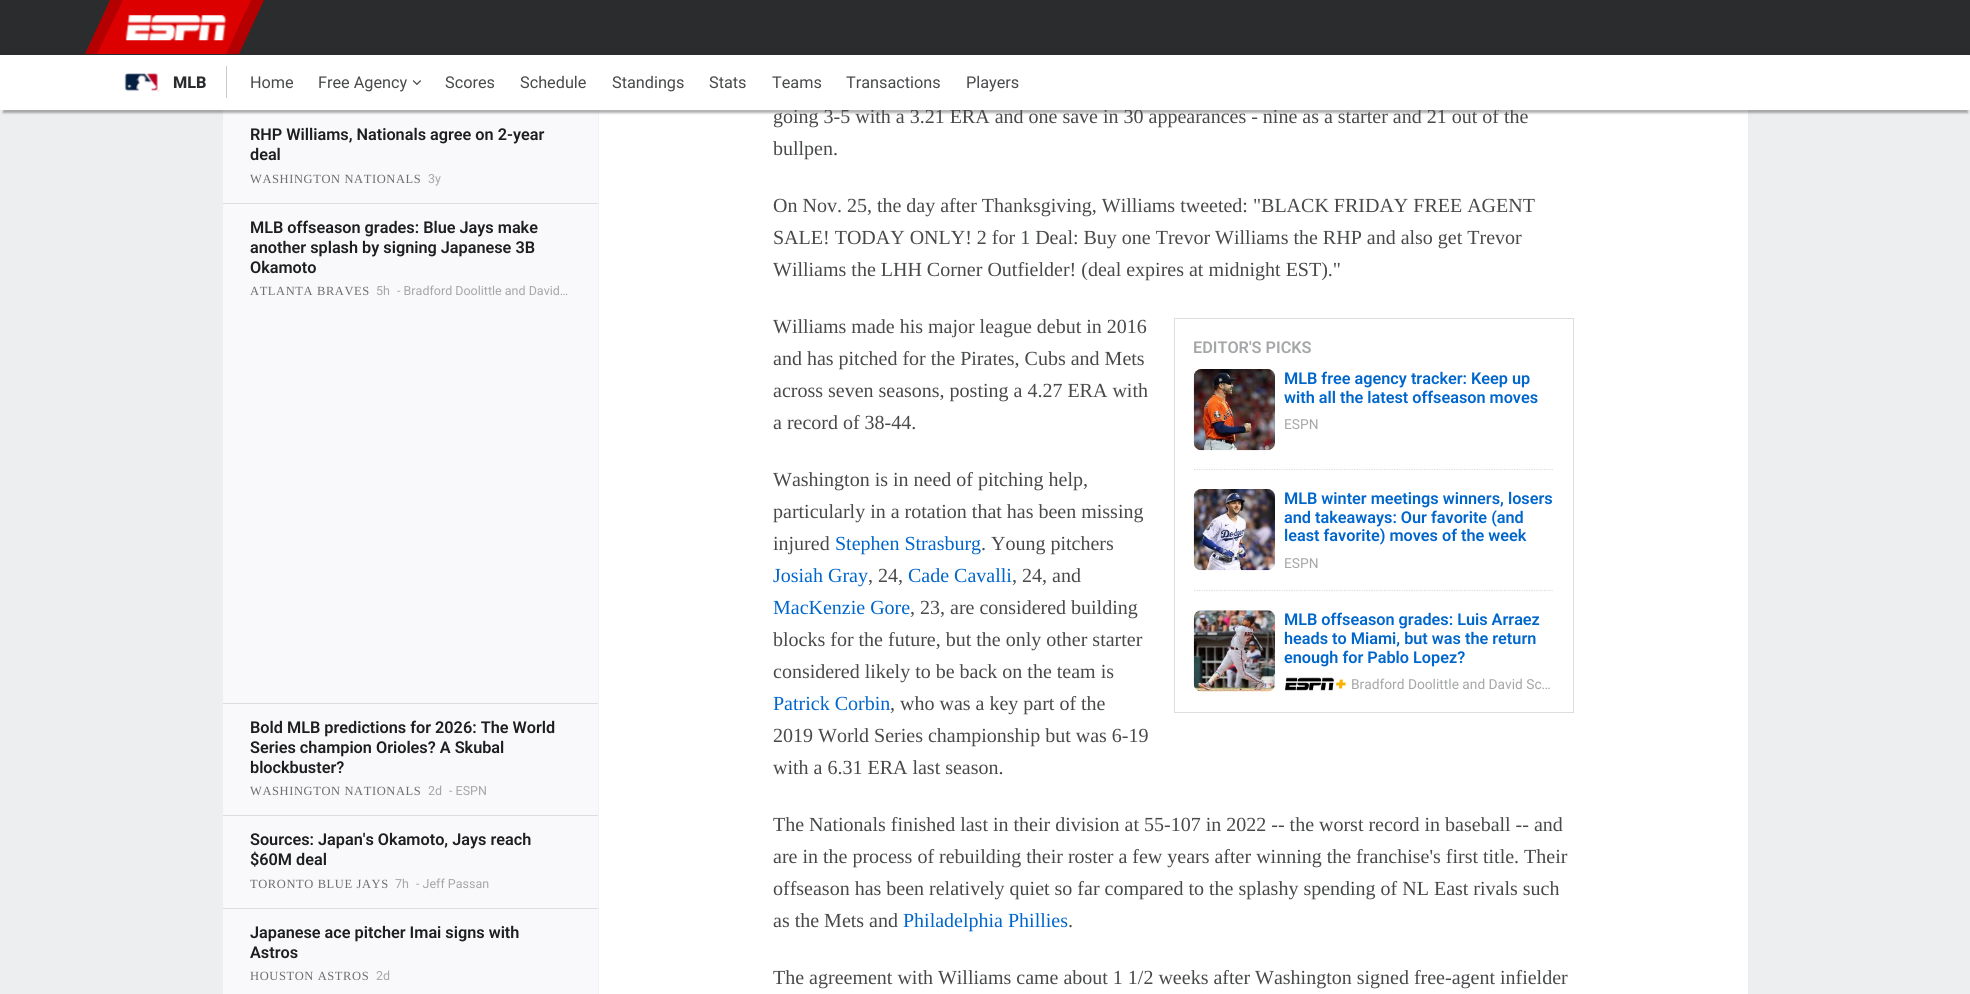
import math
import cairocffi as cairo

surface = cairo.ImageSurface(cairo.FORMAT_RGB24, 1970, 994)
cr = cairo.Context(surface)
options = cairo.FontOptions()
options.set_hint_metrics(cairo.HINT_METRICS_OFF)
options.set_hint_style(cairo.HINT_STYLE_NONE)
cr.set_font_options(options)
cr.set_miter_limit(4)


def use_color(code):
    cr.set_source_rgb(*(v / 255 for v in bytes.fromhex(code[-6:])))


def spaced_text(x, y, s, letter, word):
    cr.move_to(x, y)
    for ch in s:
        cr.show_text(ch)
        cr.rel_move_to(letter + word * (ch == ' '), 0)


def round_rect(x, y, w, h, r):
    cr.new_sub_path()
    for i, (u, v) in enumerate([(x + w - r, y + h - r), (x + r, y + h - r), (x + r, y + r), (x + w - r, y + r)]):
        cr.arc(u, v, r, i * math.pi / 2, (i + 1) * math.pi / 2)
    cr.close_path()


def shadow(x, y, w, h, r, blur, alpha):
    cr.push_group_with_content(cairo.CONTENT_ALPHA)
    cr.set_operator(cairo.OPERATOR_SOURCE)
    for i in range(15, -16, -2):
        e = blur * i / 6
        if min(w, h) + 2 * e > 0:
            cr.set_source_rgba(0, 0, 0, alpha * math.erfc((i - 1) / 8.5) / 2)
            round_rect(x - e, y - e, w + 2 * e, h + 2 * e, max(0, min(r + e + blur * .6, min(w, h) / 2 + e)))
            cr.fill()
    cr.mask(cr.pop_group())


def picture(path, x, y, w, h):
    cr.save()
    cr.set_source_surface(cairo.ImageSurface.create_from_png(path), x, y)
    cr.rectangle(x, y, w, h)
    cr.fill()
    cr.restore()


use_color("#edeef0")
cr.paint()
use_color("#2b2c2d")
cr.rectangle(0, 0, 1970, 55)
cr.fill()
use_color("#b40000")
cr.new_path()
cr.move_to(110, 0)
cr.line_to(264, 0)
cr.line_to(239, 54)
cr.line_to(85, 54)
cr.close_path()
cr.fill()
use_color("#dd0000")
cr.new_path()
cr.move_to(123, 0)
cr.line_to(251, 0)
cr.line_to(226, 54)
cr.line_to(97, 54)
cr.close_path()
cr.fill()
picture("img1.png", 125, 15, 102, 26)
use_color("#f9f9fb")
cr.rectangle(223, 110, 375, 884)
cr.fill()
use_color("#f1f2f3")
cr.rectangle(598, 110, 1, 884)
cr.fill()
use_color("#ffffff")
cr.rectangle(599, 110, 1149, 884)
cr.fill()
use_color("#000000")
shadow(3, 63, 1965, 50, 0, 1, 0.3)
cr.select_font_face("Liberation Serif")
cr.set_font_size(20)
use_color("#48494a")
cr.move_to(773, 123)
cr.show_text("going 3-5 with a 3.21 ERA and one save in 30 appearances - nine as a starter and 21 out of the")
use_color("#ffffff")
round_rect(0, 55, 1970, 55, 1)
cr.fill()
picture("img2.png", 124, 73, 36, 19)
cr.select_font_face("Roboto ExtraBold")
cr.set_font_size(16.25)
use_color("#2b2c2d")
cr.move_to(173, 88)
cr.show_text("MLB")
use_color("#cbccce")
cr.rectangle(226, 66, 1, 32)
cr.fill()
cr.select_font_face("Roboto")
use_color("#48494a")
cr.move_to(250, 88)
cr.show_text("Home")
cr.move_to(318, 88)
cr.show_text("Free Agency")
picture("img3.png", 412, 80, 9, 6)
cr.move_to(445, 88)
cr.show_text("Scores")
cr.move_to(520, 88)
cr.show_text("Schedule")
cr.move_to(612, 88)
cr.show_text("Standings")
cr.move_to(709, 88)
cr.show_text("Stats")
cr.move_to(772, 88)
cr.show_text("Teams")
cr.move_to(846, 88)
cr.show_text("Transactions")
cr.move_to(966, 88)
cr.show_text("Players")
cr.select_font_face("Roboto SemiBold")
use_color("#1d1e1f")
cr.move_to(250, 140)
cr.show_text("RHP Williams, Nationals agree on 2-year")
cr.move_to(250, 160)
cr.show_text("deal")
cr.select_font_face("Liberation Serif")
cr.set_font_size(12.5)
use_color("#6c6d6f")
spaced_text(250, 183, "WASHINGTON NATIONALS", 0.6, 0)
cr.select_font_face("Roboto")
use_color("#a5a6a7")
cr.move_to(428, 183)
cr.show_text("3y")
use_color("#dcdddf")
cr.rectangle(223, 203, 375, 1)
cr.fill()
cr.select_font_face("Roboto SemiBold")
cr.set_font_size(16.25)
use_color("#1d1e1f")
cr.move_to(250, 233)
cr.show_text("MLB offseason grades: Blue Jays make")
cr.move_to(250, 253)
cr.show_text("another splash by signing Japanese 3B")
cr.move_to(250, 273)
cr.show_text("Okamoto")
cr.select_font_face("Liberation Serif")
cr.set_font_size(12.5)
use_color("#6c6d6f")
spaced_text(250, 295, "ATLANTA BRAVES", 0.6, 0)
cr.select_font_face("Roboto")
use_color("#a5a6a7")
cr.move_to(376, 295)
cr.show_text("5h")
cr.move_to(397, 295)
cr.show_text("- Bradford Doolittle and David…")
use_color("#dcdddf")
cr.rectangle(223, 703, 375, 1)
cr.fill()
cr.select_font_face("Roboto SemiBold")
cr.set_font_size(16.25)
use_color("#1d1e1f")
cr.move_to(250, 733)
cr.show_text("Bold MLB predictions for 2026: The World")
cr.move_to(250, 753)
cr.show_text("Series champion Orioles? A Skubal")
cr.move_to(250, 773)
cr.show_text("blockbuster?")
cr.select_font_face("Liberation Serif")
cr.set_font_size(12.5)
use_color("#6c6d6f")
spaced_text(250, 795, "WASHINGTON NATIONALS", 0.6, 0)
cr.select_font_face("Roboto")
use_color("#a5a6a7")
cr.move_to(428, 795)
cr.show_text("2d")
cr.move_to(449, 795)
cr.show_text("- ESPN")
use_color("#dcdddf")
cr.rectangle(223, 815, 375, 1)
cr.fill()
cr.select_font_face("Roboto SemiBold")
cr.set_font_size(16.25)
use_color("#1d1e1f")
cr.move_to(250, 845)
cr.show_text("Sources: Japan's Okamoto, Jays reach")
cr.move_to(250, 865)
cr.show_text("$60M deal")
cr.select_font_face("Liberation Serif")
cr.set_font_size(12.5)
use_color("#6c6d6f")
spaced_text(250, 888, "TORONTO BLUE JAYS", 0.6, 0)
cr.select_font_face("Roboto")
use_color("#a5a6a7")
cr.move_to(395, 888)
cr.show_text("7h")
cr.move_to(416, 888)
cr.show_text("- Jeff Passan")
use_color("#dcdddf")
cr.rectangle(223, 908, 375, 1)
cr.fill()
cr.select_font_face("Roboto SemiBold")
cr.set_font_size(16.25)
use_color("#1d1e1f")
cr.move_to(250, 938)
cr.show_text("Japanese ace pitcher Imai signs with")
cr.move_to(250, 958)
cr.show_text("Astros")
cr.select_font_face("Liberation Serif")
cr.set_font_size(12.5)
use_color("#6c6d6f")
spaced_text(250, 980, "HOUSTON ASTROS", 0.6, 0)
cr.select_font_face("Roboto")
use_color("#a5a6a7")
cr.move_to(376, 980)
cr.show_text("2d")
cr.select_font_face("Liberation Serif")
cr.set_font_size(20)
use_color("#48494a")
cr.move_to(773, 155)
cr.show_text("bullpen.")
cr.move_to(773, 212)
cr.show_text("On Nov. 25, the day after Thanksgiving, Williams tweeted: \"BLACK FRIDAY FREE AGENT")
cr.move_to(773, 244)
cr.show_text("SALE! TODAY ONLY! 2 for 1 Deal: Buy one Trevor Williams the RHP and also get Trevor")
cr.move_to(773, 276)
cr.show_text("Williams the LHH Corner Outfielder! (deal expires at midnight EST).\"")
cr.move_to(773, 333)
cr.show_text("Williams made his major league debut in 2016")
cr.move_to(773, 365)
cr.show_text("and has pitched for the Pirates, Cubs and Mets")
cr.move_to(773, 397)
cr.show_text("across seven seasons, posting a 4.27 ERA with")
cr.move_to(773, 429)
cr.show_text("a record of 38-44.")
cr.rectangle(1174.5, 318.5, 399, 394)
use_color("#dcdddf")
cr.set_line_width(1)
cr.stroke()
cr.select_font_face("Roboto SemiBold")
cr.set_font_size(16.25)
use_color("#a5a6a7")
cr.move_to(1193, 353)
cr.show_text("EDITOR'S PICKS")
picture("img4.png", 1193, 369, 82, 82)
use_color("#0066cc")
cr.move_to(1284, 384)
cr.show_text("MLB free agency tracker: Keep up")
cr.move_to(1284, 403)
cr.show_text("with all the latest offseason moves")
cr.select_font_face("Roboto")
cr.set_font_size(13.75)
use_color("#a5a6a7")
cr.move_to(1284, 429)
cr.show_text("ESPN")
cr.new_path()
cr.move_to(1194, 469.5)
cr.line_to(1554, 469.5)
use_color("#dcdddf")
cr.set_line_width(1.2)
cr.set_dash([1.25, 1.25])
cr.stroke()
picture("img5.png", 1193, 489, 82, 82)
cr.select_font_face("Roboto SemiBold")
cr.set_font_size(16.25)
use_color("#0066cc")
cr.move_to(1284, 504)
cr.show_text("MLB winter meetings winners, losers")
cr.move_to(1284, 523)
cr.show_text("and takeaways: Our favorite (and")
cr.move_to(1284, 541)
cr.show_text("least favorite) moves of the week")
cr.select_font_face("Roboto")
cr.set_font_size(13.75)
use_color("#a5a6a7")
cr.move_to(1284, 568)
cr.show_text("ESPN")
cr.new_path()
cr.move_to(1194, 590.5)
cr.line_to(1554, 590.5)
use_color("#dcdddf")
cr.stroke()
picture("img6.png", 1193, 610, 82, 82)
cr.select_font_face("Roboto SemiBold")
cr.set_font_size(16.25)
use_color("#0066cc")
cr.move_to(1284, 625)
cr.show_text("MLB offseason grades: Luis Arraez")
cr.move_to(1284, 644)
cr.show_text("heads to Miami, but was the return")
cr.move_to(1284, 663)
cr.show_text("enough for Pablo Lopez?")
picture("img7.png", 1285, 677, 61, 14)
cr.select_font_face("Roboto")
cr.set_font_size(13.75)
use_color("#a5a6a7")
cr.move_to(1351, 689)
cr.show_text("Bradford Doolittle and David Sc…")
cr.select_font_face("Liberation Serif")
cr.set_font_size(20)
use_color("#48494a")
cr.move_to(773, 486)
cr.show_text("Washington is in need of pitching help,")
cr.move_to(773, 518)
cr.show_text("particularly in a rotation that has been missing")
cr.move_to(773, 550)
cr.show_text("injured")
use_color("#0066cc")
cr.move_to(835, 550)
cr.show_text("Stephen Strasburg")
use_color("#48494a")
cr.move_to(981, 550)
cr.show_text(". Young pitchers")
use_color("#0066cc")
cr.move_to(773, 582)
cr.show_text("Josiah Gray")
use_color("#48494a")
cr.move_to(868, 582)
cr.show_text(", 24,")
use_color("#0066cc")
cr.move_to(908, 582)
cr.show_text("Cade Cavalli")
use_color("#48494a")
cr.move_to(1012, 582)
cr.show_text(", 24, and")
use_color("#0066cc")
cr.move_to(773, 614)
cr.show_text("MacKenzie Gore")
use_color("#48494a")
cr.move_to(910, 614)
cr.show_text(", 23, are considered building")
cr.move_to(773, 646)
cr.show_text("blocks for the future, but the only other starter")
cr.move_to(773, 678)
cr.show_text("considered likely to be back on the team is")
use_color("#0066cc")
cr.move_to(773, 710)
cr.show_text("Patrick Corbin")
use_color("#48494a")
cr.move_to(890, 710)
cr.show_text(", who was a key part of the")
cr.move_to(773, 742)
cr.show_text("2019 World Series championship but was 6-19")
cr.move_to(773, 774)
cr.show_text("with a 6.31 ERA last season.")
cr.move_to(773, 831)
cr.show_text("The Nationals finished last in their division at 55-107 in 2022 -- the worst record in baseball -- and")
cr.move_to(773, 863)
cr.show_text("are in the process of rebuilding their roster a few years after winning the franchise's first title. Their")
cr.move_to(773, 895)
cr.show_text("offseason has been relatively quiet so far compared to the splashy spending of NL East rivals such")
cr.move_to(773, 927)
cr.show_text("as the Mets and")
use_color("#0066cc")
cr.move_to(903, 927)
cr.show_text("Philadelphia Phillies")
use_color("#48494a")
cr.move_to(1068, 927)
cr.show_text(".")
cr.move_to(773, 984)
cr.show_text("The agreement with Williams came about 1 1/2 weeks after Washington signed free-agent infielder")
surface.write_to_png("result.png")
